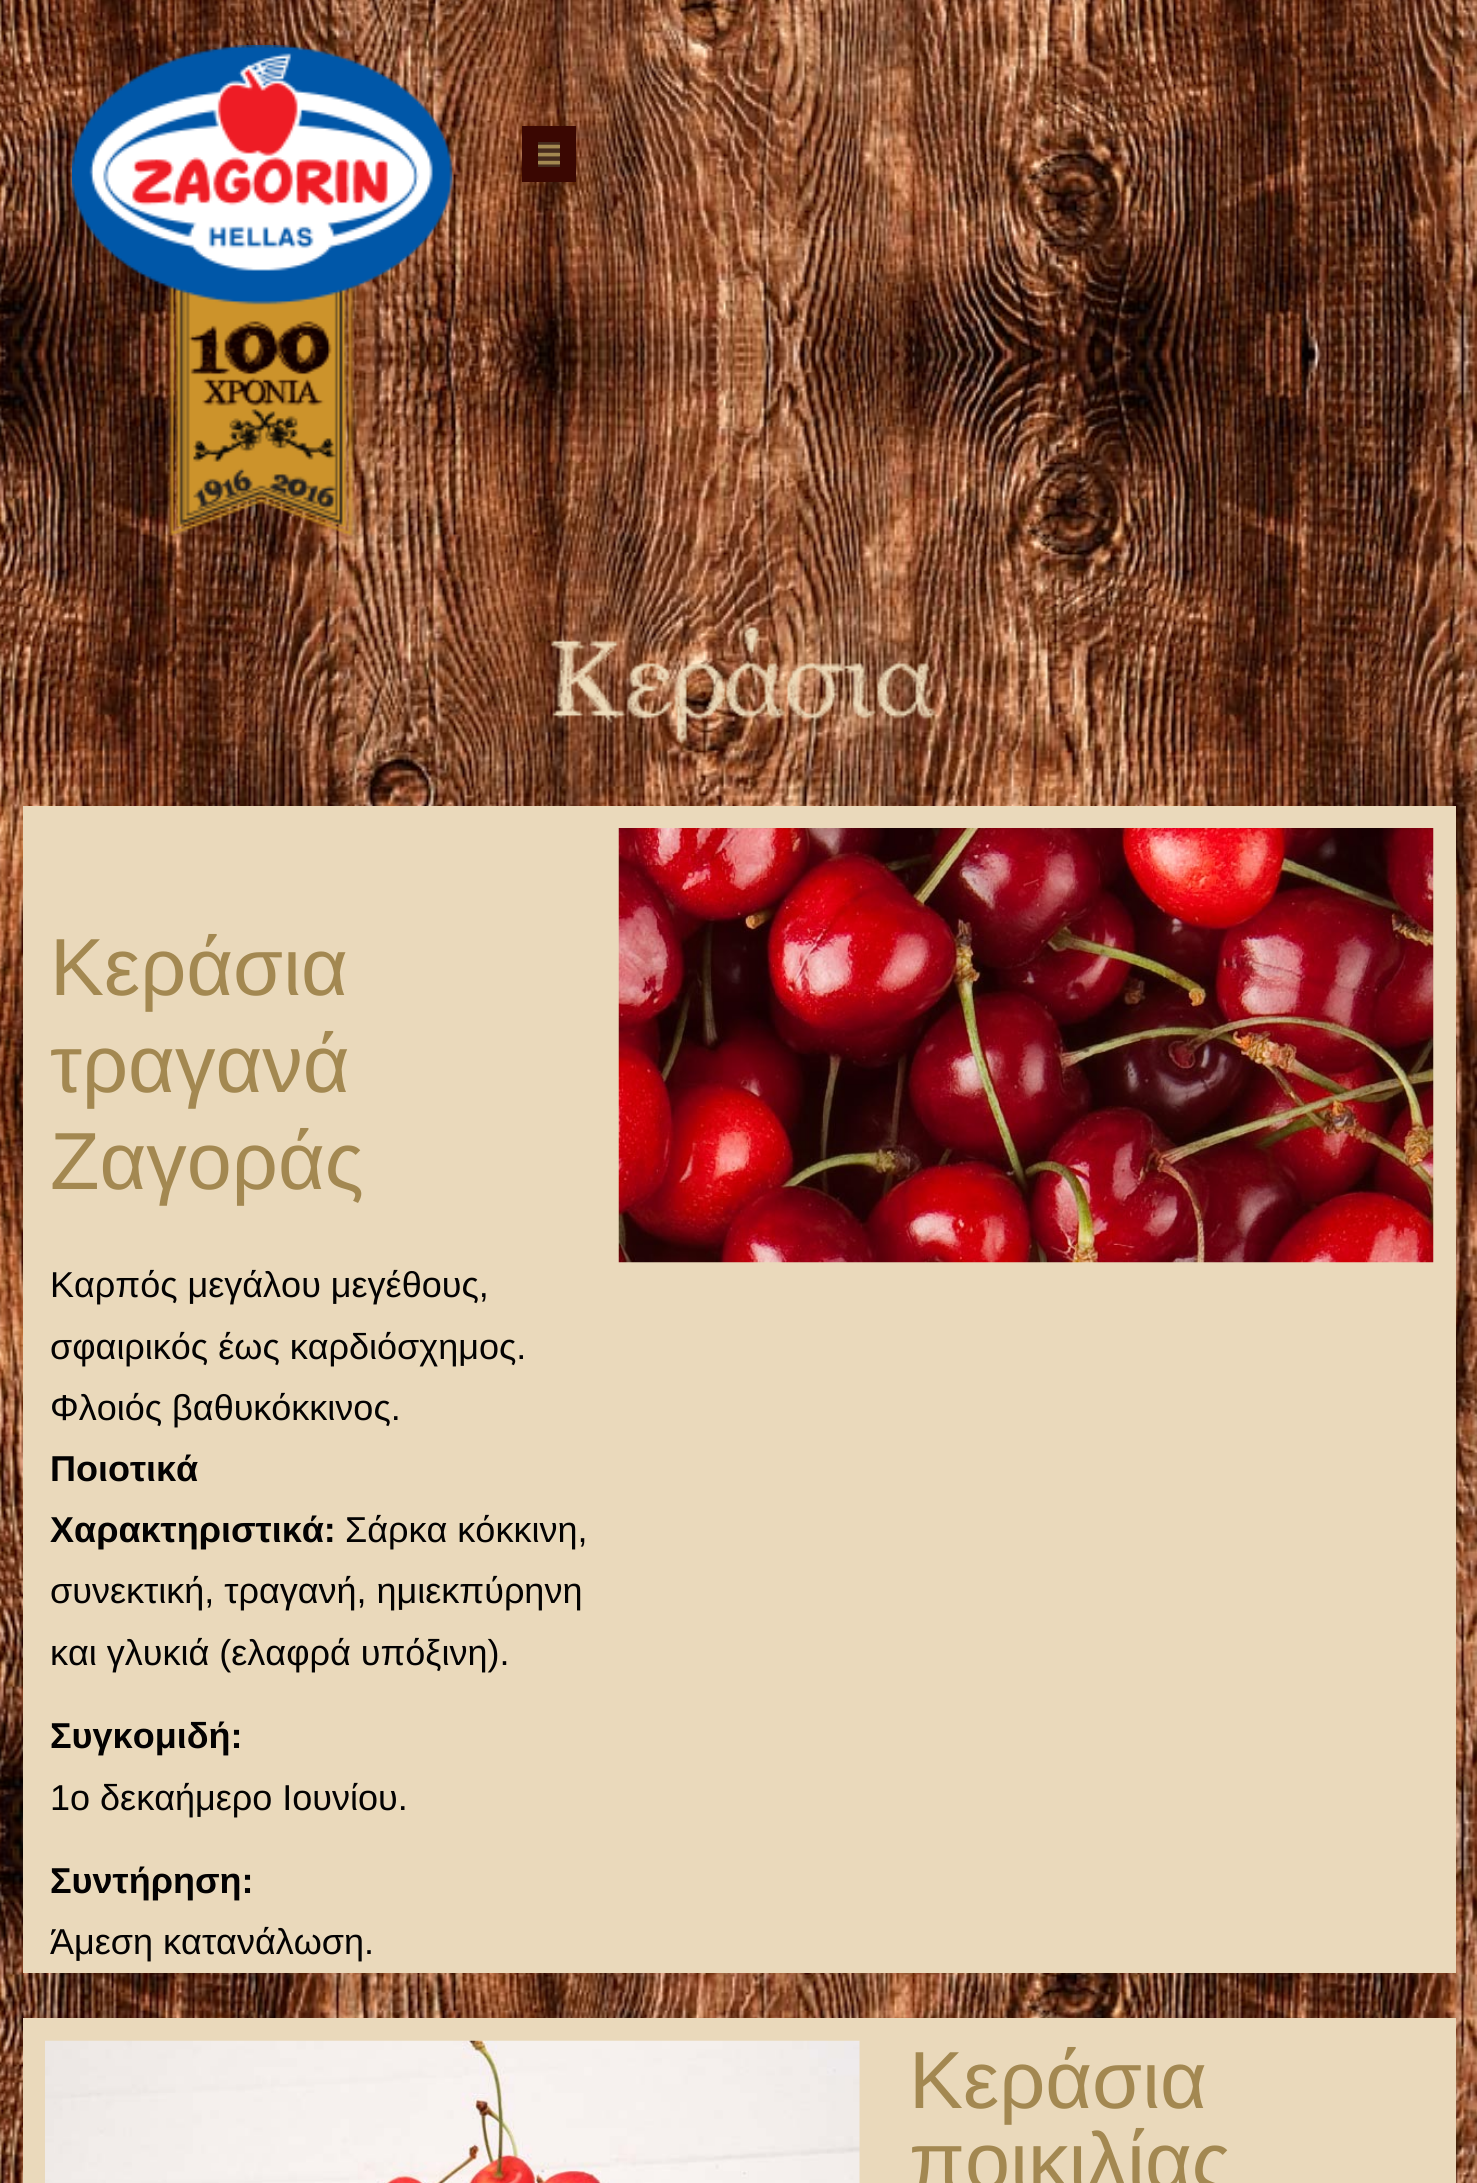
import math
import cairocffi as cairo

surface = cairo.ImageSurface(cairo.FORMAT_RGB24, 1477, 2183)
cr = cairo.Context(surface)
options = cairo.FontOptions()
options.set_hint_metrics(cairo.HINT_METRICS_OFF)
options.set_hint_style(cairo.HINT_STYLE_NONE)
cr.set_font_options(options)
cr.set_miter_limit(4)


def use_color(code):
    cr.set_source_rgb(*(v / 255 for v in bytes.fromhex(code[-6:])))


def picture(path, x, y, w, h):
    cr.save()
    cr.set_source_surface(cairo.ImageSurface.create_from_png(path), x, y)
    cr.rectangle(x, y, w, h)
    cr.fill()
    cr.restore()


use_color("#ffffff")
cr.paint()
picture("img1.png", 0, 0, 1477, 2183)
picture("img2.png", 72, 45, 381, 491)
use_color("#3a0702")
cr.rectangle(522, 126, 54, 56)
cr.fill()
use_color("#462b1d")
cr.rectangle(538, 142, 22, 25)
cr.fill()
picture("img3.png", 538, 144, 22, 21)
picture("img4.png", 550, 627, 387, 117)
use_color("#ead9bb")
cr.rectangle(23, 806, 1433, 1167)
cr.fill()
cr.select_font_face("Liberation Sans")
cr.set_font_size(81)
use_color("#a38851")
cr.move_to(50, 995)
cr.show_text("Κεράσια")
cr.move_to(50, 1092)
cr.show_text("τραγανά")
cr.move_to(50, 1189)
cr.show_text("Ζαγοράς")
cr.set_font_size(36)
use_color("#030202")
cr.move_to(50, 1297)
cr.show_text("Καρπός μεγάλου μεγέθους,")
cr.move_to(50, 1359)
cr.show_text("σφαιρικός έως καρδιόσχημος.")
cr.move_to(50, 1420)
cr.show_text("Φλοιός βαθυκόκκινος.")
cr.select_font_face("Liberation Sans", cairo.FONT_SLANT_NORMAL, cairo.FONT_WEIGHT_BOLD)
cr.move_to(50, 1481)
cr.show_text("Ποιοτικά")
cr.move_to(50, 1542)
cr.show_text("Χαρακτηριστικά:")
cr.select_font_face("Liberation Sans")
cr.move_to(345, 1542)
cr.show_text("Σάρκα κόκκινη,")
cr.move_to(50, 1603)
cr.show_text("συνεκτική, τραγανή, ημιεκπύρηνη")
cr.move_to(50, 1665)
cr.show_text("και γλυκιά (ελαφρά υπόξινη).")
cr.select_font_face("Liberation Sans", cairo.FONT_SLANT_NORMAL, cairo.FONT_WEIGHT_BOLD)
cr.move_to(50, 1748)
cr.show_text("Συγκομιδή:")
cr.select_font_face("Liberation Sans")
cr.move_to(50, 1810)
cr.show_text("1ο δεκαήμερο Ιουνίου.")
cr.select_font_face("Liberation Sans", cairo.FONT_SLANT_NORMAL, cairo.FONT_WEIGHT_BOLD)
cr.move_to(50, 1893)
cr.show_text("Συντήρηση:")
cr.select_font_face("Liberation Sans")
cr.move_to(50, 1954)
cr.show_text("Άμεση κατανάλωση.")
picture("img5.png", 618, 828, 816, 435)
use_color("#ead9bb")
cr.rectangle(23, 2018, 1433, 165)
cr.fill()
picture("img6.png", 45, 2040, 815, 143)
cr.set_font_size(81)
use_color("#a38851")
cr.move_to(909, 2108)
cr.show_text("Κεράσια")
cr.move_to(909, 2189)
cr.show_text("ποικιλίας")
surface.write_to_png("result.png")
